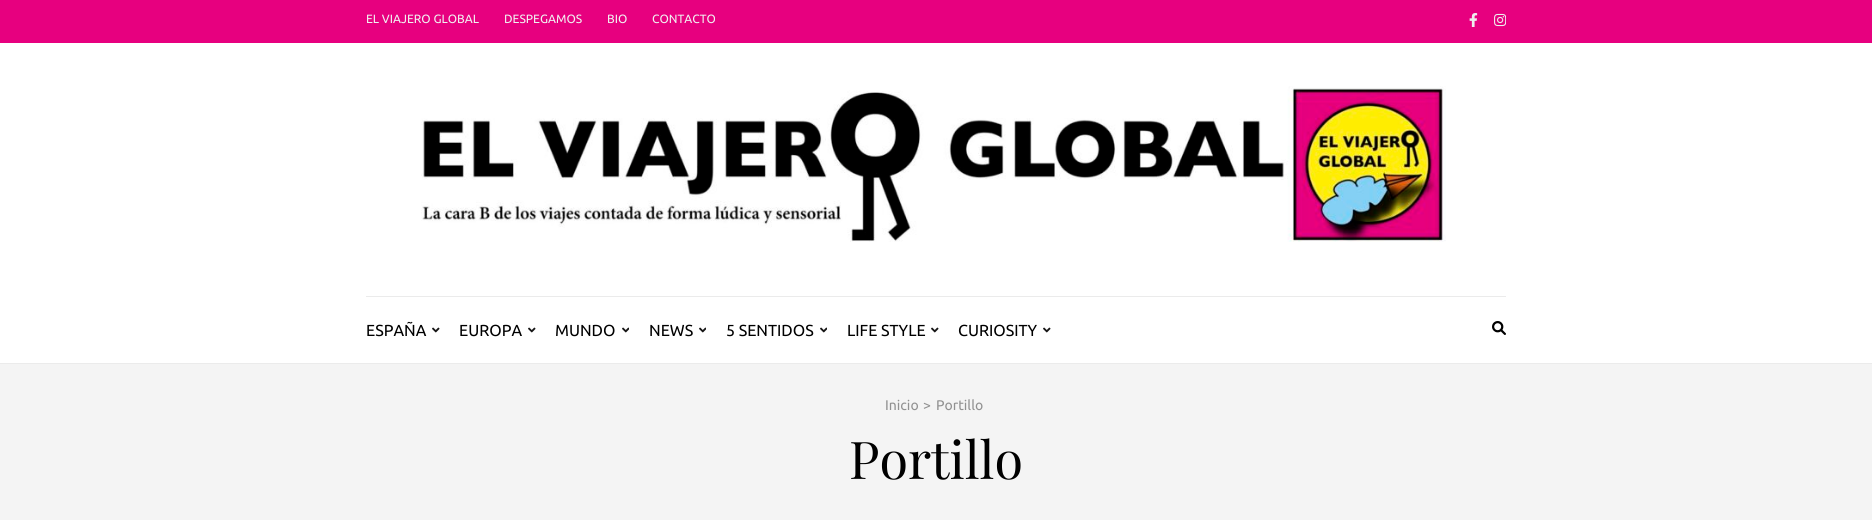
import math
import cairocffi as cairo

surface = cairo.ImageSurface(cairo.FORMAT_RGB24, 1872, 520)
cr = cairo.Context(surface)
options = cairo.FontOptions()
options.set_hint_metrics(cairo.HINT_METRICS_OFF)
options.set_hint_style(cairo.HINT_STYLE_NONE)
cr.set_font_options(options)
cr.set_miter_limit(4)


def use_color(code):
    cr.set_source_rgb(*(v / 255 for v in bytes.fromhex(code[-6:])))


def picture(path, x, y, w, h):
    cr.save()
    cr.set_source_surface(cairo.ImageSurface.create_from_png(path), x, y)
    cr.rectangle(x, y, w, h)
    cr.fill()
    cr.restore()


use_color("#ffffff")
cr.paint()
use_color("#e7007f")
cr.rectangle(0, 0, 1872, 43)
cr.fill()
cr.select_font_face("Ubuntu")
cr.set_font_size(12)
use_color("#f1f1f1")
cr.move_to(366, 23)
cr.show_text("EL VIAJERO GLOBAL")
cr.move_to(504, 23)
cr.show_text("DESPEGAMOS")
cr.move_to(607, 23)
cr.show_text("BIO")
cr.move_to(652, 23)
cr.show_text("CONTACTO")
picture("img1.png", 1469, 13, 9, 14)
picture("img2.png", 1494, 13, 12, 14)
picture("img3.png", 421, 86, 1025, 156)
use_color("#ebebeb")
cr.rectangle(366, 296, 1140, 1)
cr.fill()
cr.set_font_size(16)
use_color("#000000")
cr.move_to(366, 336)
cr.show_text("ESPAÑA")
picture("img4.png", 432, 327, 8, 6)
cr.move_to(459, 336)
cr.show_text("EUROPA")
picture("img4.png", 528, 327, 8, 6)
cr.move_to(555, 336)
cr.show_text("MUNDO")
picture("img5.png", 622, 327, 7, 6)
cr.move_to(649, 336)
cr.show_text("NEWS")
picture("img5.png", 699, 327, 7, 6)
cr.move_to(726, 336)
cr.show_text("5 SENTIDOS")
picture("img5.png", 820, 327, 7, 6)
cr.move_to(847, 336)
cr.show_text("LIFE STYLE")
picture("img4.png", 931, 327, 8, 6)
cr.move_to(958, 336)
cr.show_text("CURIOSITY")
picture("img4.png", 1043, 327, 8, 6)
picture("img6.png", 1492, 321, 14, 14)
use_color("#f4f4f4")
cr.rectangle(0, 364, 1872, 156)
cr.fill()
use_color("#ebebeb")
cr.rectangle(0, 363, 1872, 1)
cr.fill()
cr.set_font_size(14)
use_color("#919191")
cr.move_to(885, 410)
cr.show_text("Inicio")
cr.move_to(923, 410)
cr.show_text(">")
cr.move_to(936, 410)
cr.show_text("Portillo")
cr.select_font_face("Playfair Display")
cr.set_font_size(52)
use_color("#000000")
cr.move_to(849, 479)
cr.show_text("Portillo")
surface.write_to_png("result.png")
